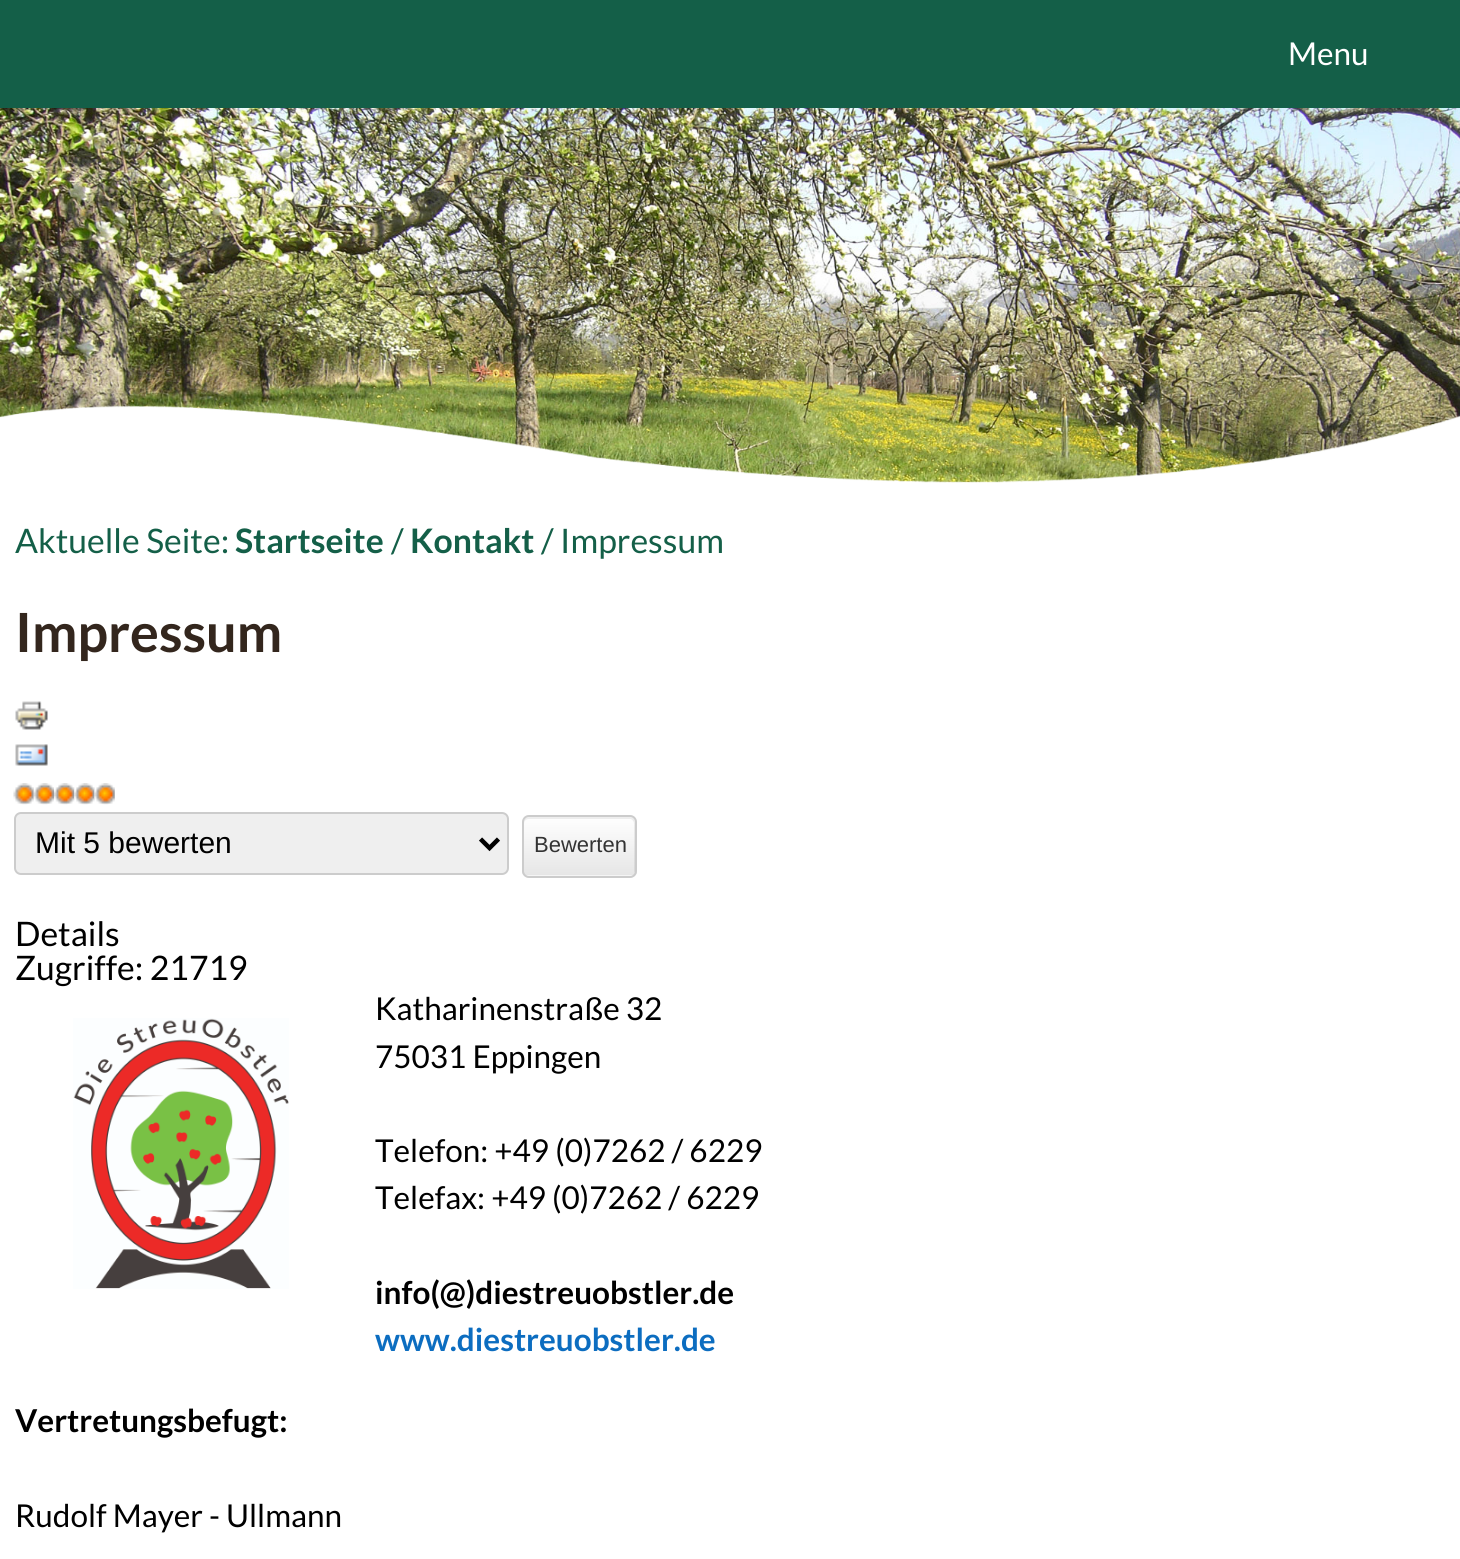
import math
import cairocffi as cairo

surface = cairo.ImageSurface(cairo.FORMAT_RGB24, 1460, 1559)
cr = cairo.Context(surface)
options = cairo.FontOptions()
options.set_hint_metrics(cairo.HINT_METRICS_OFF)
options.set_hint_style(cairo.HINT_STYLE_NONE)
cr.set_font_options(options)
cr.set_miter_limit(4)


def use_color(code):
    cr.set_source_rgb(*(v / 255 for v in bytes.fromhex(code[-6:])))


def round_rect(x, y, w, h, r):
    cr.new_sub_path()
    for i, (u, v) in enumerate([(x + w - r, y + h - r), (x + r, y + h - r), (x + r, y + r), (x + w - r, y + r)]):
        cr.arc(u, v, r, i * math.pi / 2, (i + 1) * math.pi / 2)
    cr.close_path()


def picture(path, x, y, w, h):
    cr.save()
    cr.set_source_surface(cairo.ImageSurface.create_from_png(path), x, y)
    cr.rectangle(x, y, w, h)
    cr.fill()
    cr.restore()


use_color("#ffffff")
cr.paint()
use_color("#145f48")
cr.rectangle(0, 0, 1460, 108)
cr.fill()
cr.select_font_face("Lato")
cr.set_font_size(31.5)
use_color("#ffffff")
cr.move_to(1288, 65)
cr.show_text("Menu")
picture("img1.png", 0, 108, 1460, 375)
picture("img2.png", 0, 405, 1460, 108)
cr.set_font_size(33.75)
use_color("#145f48")
cr.move_to(15, 553)
cr.show_text("Aktuelle Seite:")
cr.select_font_face("Lato", cairo.FONT_SLANT_NORMAL, cairo.FONT_WEIGHT_BOLD)
cr.move_to(235, 553)
cr.show_text("Startseite")
cr.select_font_face("Lato")
cr.move_to(391, 553)
cr.show_text("/")
cr.select_font_face("Lato", cairo.FONT_SLANT_NORMAL, cairo.FONT_WEIGHT_BOLD)
cr.move_to(410, 553)
cr.show_text("Kontakt")
cr.select_font_face("Lato")
cr.move_to(541, 553)
cr.show_text("/ Impressum")
cr.select_font_face("Lato", cairo.FONT_SLANT_NORMAL, cairo.FONT_WEIGHT_BOLD)
cr.set_font_size(54)
use_color("#33261d")
cr.move_to(15, 652)
cr.show_text("Impressum")
picture("img3.png", 15, 701, 33, 29)
picture("img4.png", 15, 744, 33, 22)
picture("img5.png", 13, 783, 21, 22)
picture("img6.png", 33, 783, 21, 22)
picture("img7.png", 54, 783, 21, 22)
picture("img8.png", 74, 783, 21, 22)
picture("img9.png", 94, 783, 21, 22)
use_color("#efefef")
round_rect(15, 813, 493, 61, 6)
cr.fill_preserve()
use_color("#cccccc")
cr.stroke()
cr.new_path()
cr.move_to(480.5, 839)
cr.line_to(489.5, 848)
cr.line_to(498.5, 839)
use_color("#000000")
cr.set_line_width(4.5)
cr.stroke()
cr.select_font_face("Liberation Sans")
cr.set_font_size(30)
cr.move_to(35, 853)
cr.show_text("Mit 5 bewerten")
use_color("#f5f5f5")
round_rect(522, 815, 115, 63, 7)
cr.fill()
cr.save()
round_rect(522, 815, 115, 63, 7)
cr.clip()
gradient = cairo.LinearGradient(579, 817, 579, 875)
gradient.add_color_stop_rgba(0, 1, 1, 1, 1)
gradient.add_color_stop_rgba(1, 0.902, 0.902, 0.902, 1)
cr.set_source(gradient)
cr.rectangle(522, 817, 115, 58)
cr.fill()
cr.restore()
cr.set_source_rgba(0, 0, 0, 0.07)
cr.new_path()
cr.move_to(529, 819)
cr.line_to(630, 819)
cr.curve_to(632, 819, 634, 821, 634, 824)
cr.line_to(634, 873)
cr.curve_to(635, 872, 635, 871, 635, 870)
cr.line_to(635, 822)
cr.curve_to(635, 819, 633, 817, 630, 817)
cr.line_to(529, 817)
cr.curve_to(526, 817, 524, 819, 524, 822)
cr.line_to(524, 824)
cr.curve_to(524, 821, 526, 819, 529, 819)
cr.close_path()
cr.fill()
round_rect(523, 816, 113, 61, 6)
use_color("#cccccc")
cr.set_line_width(2)
cr.stroke()
cr.set_font_size(22)
use_color("#333333")
cr.move_to(534, 852)
cr.show_text("Bewerten")
cr.select_font_face("Lato")
cr.set_font_size(33.75)
use_color("#000000")
cr.move_to(15, 946)
cr.show_text("Details")
cr.move_to(15, 980)
cr.show_text("Zugriffe: 21719")
cr.set_font_size(31.5)
cr.move_to(375, 1020)
cr.show_text("Katharinenstraße 32")
picture("img10.png", 73, 1018, 216, 271)
cr.move_to(375, 1068)
cr.show_text("75031 Eppingen")
cr.move_to(375, 1162)
cr.show_text("Telefon: +49 (0)7262 / 6229")
cr.move_to(375, 1209)
cr.show_text("Telefax: +49 (0)7262 / 6229")
cr.select_font_face("Lato", cairo.FONT_SLANT_NORMAL, cairo.FONT_WEIGHT_BOLD)
cr.move_to(375, 1304)
cr.show_text("info(@)diestreuobstler.de")
use_color("#0c6dc0")
cr.move_to(375, 1351)
cr.show_text("www.diestreuobstler.de")
use_color("#000000")
cr.move_to(15, 1432)
cr.show_text("Vertretungsbefugt:")
cr.select_font_face("Lato")
cr.move_to(15, 1527)
cr.show_text("Rudolf Mayer - Ullmann")
surface.write_to_png("result.png")
